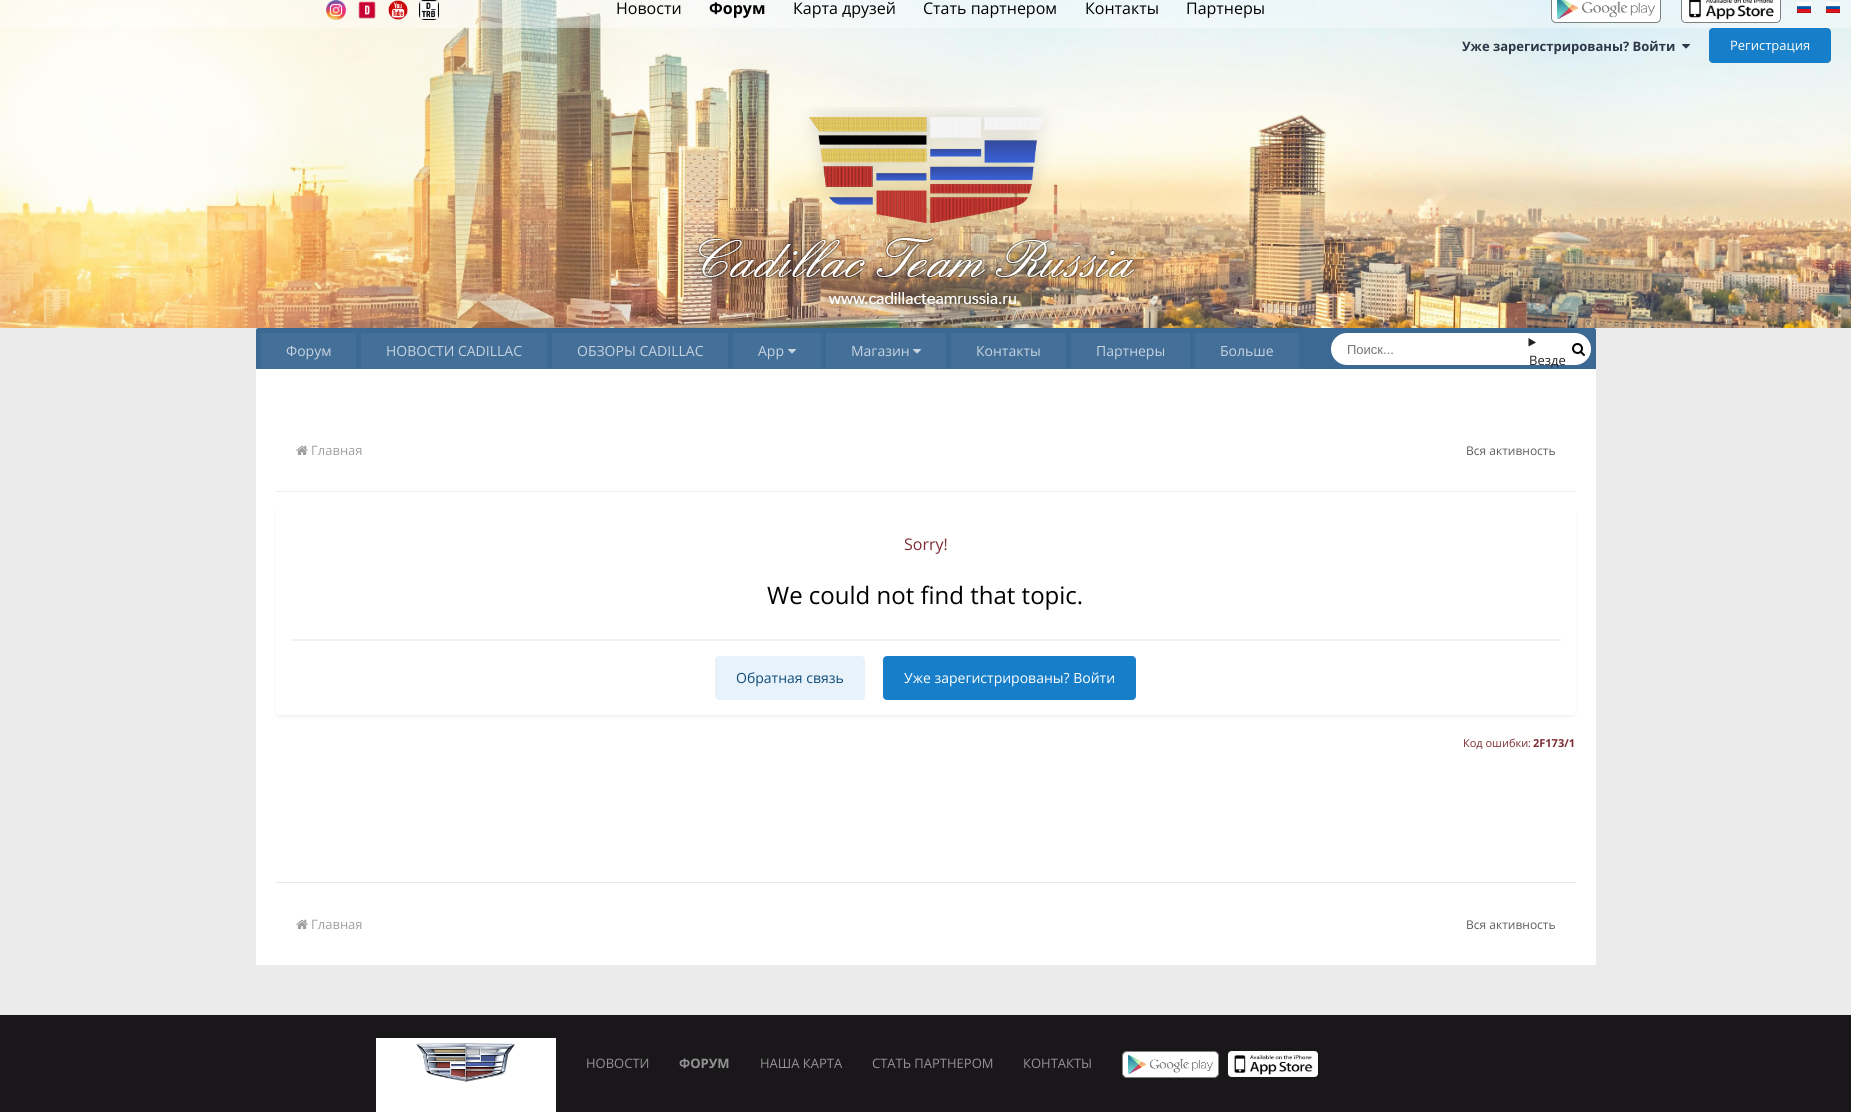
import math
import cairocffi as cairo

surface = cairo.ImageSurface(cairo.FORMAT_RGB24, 1851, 1112)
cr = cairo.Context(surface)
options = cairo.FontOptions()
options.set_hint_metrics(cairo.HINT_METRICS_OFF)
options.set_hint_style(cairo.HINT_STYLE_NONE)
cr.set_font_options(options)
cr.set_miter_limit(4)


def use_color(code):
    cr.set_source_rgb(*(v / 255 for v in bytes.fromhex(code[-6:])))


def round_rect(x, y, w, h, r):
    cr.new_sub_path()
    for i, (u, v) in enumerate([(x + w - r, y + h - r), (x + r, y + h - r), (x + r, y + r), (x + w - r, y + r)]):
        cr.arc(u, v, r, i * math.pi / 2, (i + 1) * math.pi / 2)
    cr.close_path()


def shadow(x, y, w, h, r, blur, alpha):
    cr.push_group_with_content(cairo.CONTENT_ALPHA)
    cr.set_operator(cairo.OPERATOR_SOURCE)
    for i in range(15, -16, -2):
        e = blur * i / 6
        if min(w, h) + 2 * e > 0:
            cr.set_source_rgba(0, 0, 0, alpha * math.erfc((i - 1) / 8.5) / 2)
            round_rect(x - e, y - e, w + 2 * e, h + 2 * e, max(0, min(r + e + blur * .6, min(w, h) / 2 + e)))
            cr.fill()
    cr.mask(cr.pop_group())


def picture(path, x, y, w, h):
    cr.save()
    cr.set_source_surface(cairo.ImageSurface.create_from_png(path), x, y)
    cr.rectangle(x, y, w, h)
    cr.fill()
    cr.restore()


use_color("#ebebeb")
cr.paint()
picture("img1.png", 0, 0, 1851, 328)
cr.set_source_rgba(1, 1, 1, 0.39)
cr.rectangle(0, 0, 1851, 28)
cr.fill()
picture("img2.png", 326, 0, 20, 20)
picture("img3.png", 358, 1, 18, 18)
picture("img4.png", 388, 0, 20, 20)
picture("img5.png", 419, 0, 20, 20)
cr.select_font_face("Open Sans")
cr.set_font_size(16)
use_color("#000000")
cr.move_to(616, 14)
cr.show_text("Новости")
cr.select_font_face("Open Sans", cairo.FONT_SLANT_NORMAL, cairo.FONT_WEIGHT_BOLD)
cr.move_to(709, 14)
cr.show_text("Форум")
cr.select_font_face("Open Sans")
cr.move_to(793, 14)
cr.show_text("Карта друзей")
cr.move_to(923, 14)
cr.show_text("Стать партнером")
cr.move_to(1085, 14)
cr.show_text("Контакты")
cr.move_to(1186, 14)
cr.show_text("Партнеры")
use_color("#ffffff")
round_rect(1551.5, -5.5, 109, 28, 4.5)
cr.fill_preserve()
use_color("#808080")
cr.set_line_width(1)
cr.stroke()
picture("img6.png", 1557, 0, 98, 19)
picture("img8.png", 1779, 2, 1, 11)
round_rect(1681.5, -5.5, 99, 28, 4.5)
cr.stroke()
picture("img7.png", 1682, 0, 98, 22)
picture("img9.png", 1797, 2, 14, 11)
picture("img9.png", 1826, 2, 14, 11)
cr.select_font_face("Open Sans", cairo.FONT_SLANT_NORMAL, cairo.FONT_WEIGHT_BOLD)
cr.set_font_size(13)
use_color("#2d3748")
cr.move_to(1462, 51)
cr.show_text("Уже зарегистрированы? Войти")
picture("img10.png", 1682, 44, 8, 5)
use_color("#177ec9")
round_rect(1709, 28, 122, 35, 4)
cr.fill()
cr.select_font_face("Open Sans")
use_color("#ffffff")
cr.move_to(1730, 50)
cr.show_text("Регистрация")
picture("img11.png", 692, 107, 448, 204)
use_color("#3c6994")
cr.new_path()
cr.move_to(258, 328)
cr.line_to(1594, 328)
cr.curve_to(1595, 328, 1596, 329, 1596, 330)
cr.line_to(1596, 409)
cr.line_to(256, 409)
cr.line_to(256, 330)
cr.curve_to(256, 329, 257, 328, 258, 328)
cr.close_path()
cr.fill()
use_color("#446f98")
cr.new_path()
cr.move_to(262, 333)
cr.line_to(355, 333)
cr.curve_to(355.5, 333, 356, 333.5, 356, 334)
cr.line_to(356, 369)
cr.line_to(261, 369)
cr.line_to(261, 334)
cr.curve_to(261, 333.5, 261.5, 333, 262, 333)
cr.close_path()
cr.fill()
cr.set_font_size(14)
use_color("#c7d4e0")
cr.move_to(286, 356)
cr.show_text("Форум")
use_color("#446f98")
cr.new_path()
cr.move_to(362, 333)
cr.line_to(546, 333)
cr.curve_to(546.5, 333, 547, 333.5, 547, 334)
cr.line_to(547, 369)
cr.line_to(361, 369)
cr.line_to(361, 334)
cr.curve_to(361, 333.5, 361.5, 333, 362, 333)
cr.close_path()
cr.fill()
use_color("#c7d4e0")
cr.move_to(386, 356)
cr.show_text("НОВОСТИ CADILLAC")
use_color("#446f98")
cr.new_path()
cr.move_to(553, 333)
cr.line_to(727, 333)
cr.curve_to(727.5, 333, 728, 333.5, 728, 334)
cr.line_to(728, 369)
cr.line_to(552, 369)
cr.line_to(552, 334)
cr.curve_to(552, 333.5, 552.5, 333, 553, 333)
cr.close_path()
cr.fill()
use_color("#c7d4e0")
cr.move_to(577, 356)
cr.show_text("ОБЗОРЫ CADILLAC")
use_color("#446f98")
cr.new_path()
cr.move_to(734, 333)
cr.line_to(820, 333)
cr.curve_to(820.5, 333, 821, 333.5, 821, 334)
cr.line_to(821, 369)
cr.line_to(733, 369)
cr.line_to(733, 334)
cr.curve_to(733, 333.5, 733.5, 333, 734, 333)
cr.close_path()
cr.fill()
use_color("#c7d4e0")
cr.move_to(758, 356)
cr.show_text("App")
picture("img12.png", 788, 349, 8, 5)
use_color("#446f98")
cr.new_path()
cr.move_to(827, 333)
cr.line_to(945, 333)
cr.curve_to(945.5, 333, 946, 333.5, 946, 334)
cr.line_to(946, 369)
cr.line_to(826, 369)
cr.line_to(826, 334)
cr.curve_to(826, 333.5, 826.5, 333, 827, 333)
cr.close_path()
cr.fill()
use_color("#c7d4e0")
cr.move_to(851, 356)
cr.show_text("Магазин")
picture("img12.png", 913, 349, 8, 5)
use_color("#446f98")
cr.new_path()
cr.move_to(952, 333)
cr.line_to(1065, 333)
cr.curve_to(1065.5, 333, 1066, 333.5, 1066, 334)
cr.line_to(1066, 369)
cr.line_to(951, 369)
cr.line_to(951, 334)
cr.curve_to(951, 333.5, 951.5, 333, 952, 333)
cr.close_path()
cr.fill()
use_color("#c7d4e0")
cr.move_to(976, 356)
cr.show_text("Контакты")
use_color("#446f98")
cr.new_path()
cr.move_to(1072, 333)
cr.line_to(1189, 333)
cr.curve_to(1189.5, 333, 1190, 333.5, 1190, 334)
cr.line_to(1190, 369)
cr.line_to(1071, 369)
cr.line_to(1071, 334)
cr.curve_to(1071, 333.5, 1071.5, 333, 1072, 333)
cr.close_path()
cr.fill()
use_color("#c7d4e0")
cr.move_to(1096, 356)
cr.show_text("Партнеры")
use_color("#446f98")
cr.new_path()
cr.move_to(1196, 333)
cr.line_to(1298, 333)
cr.curve_to(1298.5, 333, 1299, 333.5, 1299, 334)
cr.line_to(1299, 369)
cr.line_to(1195, 369)
cr.line_to(1195, 334)
cr.curve_to(1195, 333.5, 1195.5, 333, 1196, 333)
cr.close_path()
cr.fill()
use_color("#c7d4e0")
cr.move_to(1220, 356)
cr.show_text("Больше")
use_color("#ffffff")
cr.rectangle(256, 369, 1340, 40)
cr.fill()
round_rect(1331, 333, 260, 32, 16)
cr.fill()
cr.select_font_face("Liberation Sans")
cr.set_font_size(13)
use_color("#757575")
cr.move_to(1347, 354)
cr.show_text("Поиск...")
picture("img13.png", 1572, 343, 13, 13)
use_color("#222222")
cr.new_path()
cr.move_to(1528.5, 338)
cr.line_to(1536, 342.5)
cr.line_to(1528.5, 346.5)
cr.close_path()
cr.fill()
cr.select_font_face("Open Sans")
cr.move_to(1529, 365)
cr.show_text("Везде")
use_color("#ffffff")
cr.rectangle(256, 409, 1340, 556)
cr.fill()
use_color("#ececec")
cr.rectangle(276, 491, 1300, 1)
cr.fill()
picture("img14.png", 296, 445, 12, 10)
use_color("#a0a0a0")
cr.move_to(311, 455)
cr.show_text("Главная")
cr.set_font_size(12)
use_color("#5c5c5c")
cr.move_to(1466, 455)
cr.show_text("Вся активность")
use_color("#2d3748")
shadow(277, 510, 1298, 206, 3, 2, 0.1)
use_color("#ffffff")
round_rect(276, 507, 1300, 208, 4)
cr.fill()
cr.set_font_size(16)
use_color("#7d2d33")
cr.move_to(904, 550)
cr.show_text("Sorry!")
cr.set_font_size(24)
use_color("#000000")
cr.move_to(767, 604)
cr.show_text("We could not find that topic.")
use_color("#f2f2f2")
cr.rectangle(291, 639, 1270, 2)
cr.fill()
use_color("#e8f2fa")
round_rect(715, 656, 150, 44, 4)
cr.fill()
cr.set_font_size(14)
use_color("#0e4c79")
cr.move_to(736, 683)
cr.show_text("Обратная связь")
use_color("#177ec9")
round_rect(883, 656, 253, 44, 4)
cr.fill()
use_color("#ffffff")
cr.move_to(904, 683)
cr.show_text("Уже зарегистрированы? Войти")
cr.set_font_size(11)
use_color("#7d2d33")
cr.move_to(1463, 747)
cr.show_text("Код ошибки:")
cr.select_font_face("Open Sans", cairo.FONT_SLANT_NORMAL, cairo.FONT_WEIGHT_BOLD)
cr.move_to(1533, 747)
cr.show_text("2F173/1")
use_color("#e6e6e6")
cr.rectangle(276, 882, 1300, 1)
cr.fill()
picture("img14.png", 296, 919, 12, 10)
cr.select_font_face("Open Sans")
cr.set_font_size(13)
use_color("#a0a0a0")
cr.move_to(311, 929)
cr.show_text("Главная")
cr.set_font_size(12)
use_color("#5c5c5c")
cr.move_to(1466, 929)
cr.show_text("Вся активность")
use_color("#1a171b")
cr.rectangle(0, 1015, 1851, 97)
cr.fill()
picture("img15.png", 376, 1038, 180, 74)
cr.set_font_size(13)
use_color("#939293")
cr.move_to(586, 1068)
cr.show_text("НОВОСТИ")
cr.select_font_face("Open Sans", cairo.FONT_SLANT_NORMAL, cairo.FONT_WEIGHT_BOLD)
cr.move_to(679, 1068)
cr.show_text("ФОРУМ")
cr.select_font_face("Open Sans")
cr.move_to(760, 1068)
cr.show_text("НАША КАРТА")
cr.move_to(872, 1068)
cr.show_text("СТАТЬ ПАРТНЕРОМ")
cr.move_to(1023, 1068)
cr.show_text("КОНТАКТЫ")
use_color("#ffffff")
round_rect(1122.5, 1051.5, 96, 26, 4.5)
cr.fill_preserve()
use_color("#808080")
cr.stroke()
picture("img16.png", 1228, 1051, 90, 26)
picture("img17.png", 1128, 1055, 85, 19)
surface.write_to_png("result.png")
